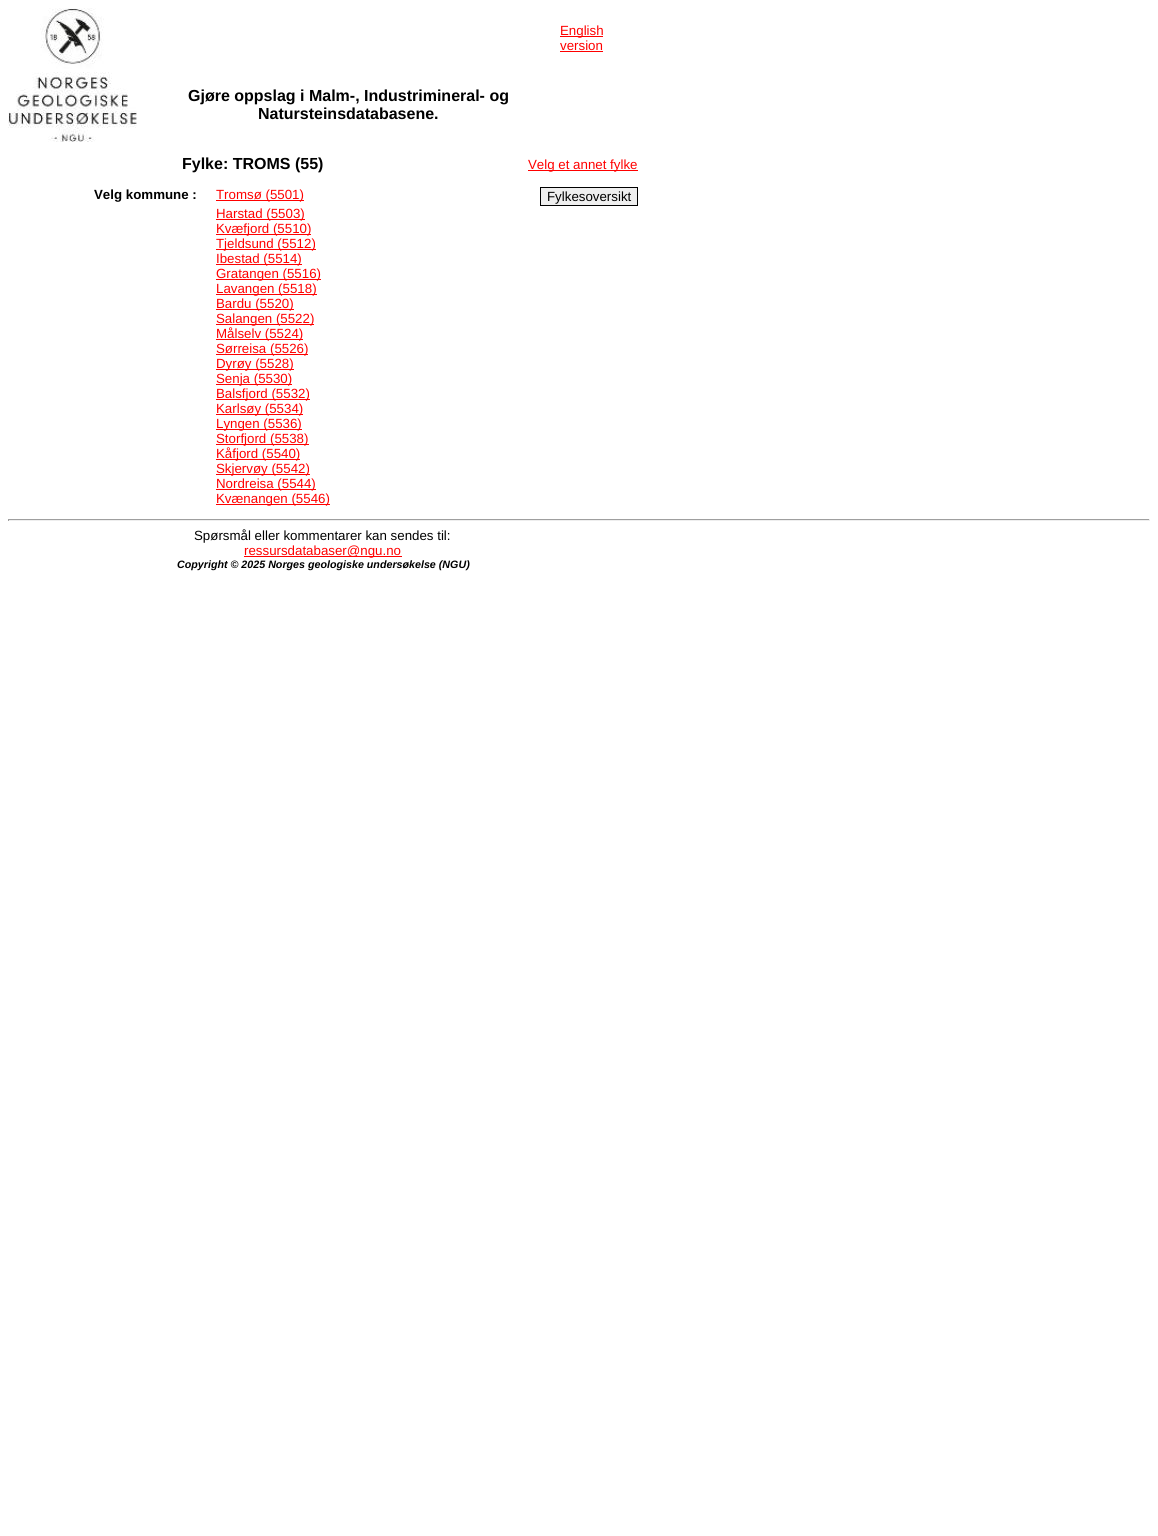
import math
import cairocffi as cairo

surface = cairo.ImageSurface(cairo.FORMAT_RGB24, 1158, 1536)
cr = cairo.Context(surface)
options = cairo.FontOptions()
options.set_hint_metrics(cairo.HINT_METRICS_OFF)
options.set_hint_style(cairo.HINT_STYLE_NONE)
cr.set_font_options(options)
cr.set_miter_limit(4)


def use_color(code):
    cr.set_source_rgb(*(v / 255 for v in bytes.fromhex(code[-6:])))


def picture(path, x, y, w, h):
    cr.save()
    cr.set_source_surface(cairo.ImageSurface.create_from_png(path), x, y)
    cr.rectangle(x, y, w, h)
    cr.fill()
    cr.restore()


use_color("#ffffff")
cr.paint()
picture("img1.png", 8, 8, 129, 134)
use_color("#ff0000")
cr.rectangle(560, 36, 43, 1)
cr.fill()
cr.select_font_face("Liberation Sans")
cr.set_font_size(13.3)
cr.move_to(560, 35)
cr.show_text("English")
cr.move_to(560, 50)
cr.show_text("version")
cr.rectangle(560, 51, 43, 1)
cr.fill()
cr.select_font_face("Liberation Sans", cairo.FONT_SLANT_NORMAL, cairo.FONT_WEIGHT_BOLD)
cr.set_font_size(16)
use_color("#000000")
cr.move_to(188, 101)
cr.show_text("Gjøre oppslag i Malm-, Industrimineral- og")
cr.move_to(258, 119)
cr.show_text("Natursteinsdatabasene.")
cr.move_to(182, 169)
cr.show_text("Fylke: TROMS (55)")
use_color("#ff0000")
cr.rectangle(528, 170, 110, 1)
cr.fill()
cr.select_font_face("Liberation Sans")
cr.set_font_size(13.3)
cr.move_to(528, 169)
cr.show_text("Velg et annet fylke")
cr.select_font_face("Liberation Sans", cairo.FONT_SLANT_NORMAL, cairo.FONT_WEIGHT_BOLD)
use_color("#000000")
cr.move_to(94, 199)
cr.show_text("Velg kommune :")
use_color("#ff0000")
cr.rectangle(216, 200, 88, 1)
cr.fill()
cr.select_font_face("Liberation Sans")
cr.move_to(216, 199)
cr.show_text("Tromsø (5501)")
use_color("#efefef")
cr.rectangle(540.5, 187.5, 97, 18)
cr.fill_preserve()
use_color("#000000")
cr.set_line_width(1)
cr.stroke()
cr.move_to(547, 201)
cr.show_text("Fylkesoversikt")
use_color("#ff0000")
cr.rectangle(216, 219, 89, 1)
cr.fill()
cr.move_to(216, 218)
cr.show_text("Harstad (5503)")
cr.rectangle(216, 234, 95, 1)
cr.fill()
cr.move_to(216, 233)
cr.show_text("Kvæfjord (5510)")
cr.rectangle(216, 249, 100, 1)
cr.fill()
cr.move_to(216, 248)
cr.show_text("Tjeldsund (5512)")
cr.rectangle(216, 264, 86, 1)
cr.fill()
cr.move_to(216, 263)
cr.show_text("Ibestad (5514)")
cr.rectangle(216, 279, 105, 1)
cr.fill()
cr.move_to(216, 278)
cr.show_text("Gratangen (5516)")
cr.rectangle(216, 294, 101, 1)
cr.fill()
cr.move_to(216, 293)
cr.show_text("Lavangen (5518)")
cr.rectangle(216, 309, 78, 1)
cr.fill()
cr.move_to(216, 308)
cr.show_text("Bardu (5520)")
cr.rectangle(216, 324, 98, 1)
cr.fill()
cr.move_to(216, 323)
cr.show_text("Salangen (5522)")
cr.rectangle(216, 339, 87, 1)
cr.fill()
cr.move_to(216, 338)
cr.show_text("Målselv (5524)")
cr.rectangle(216, 354, 92, 1)
cr.fill()
cr.move_to(216, 353)
cr.show_text("Sørreisa (5526)")
cr.rectangle(216, 369, 78, 1)
cr.fill()
cr.move_to(216, 368)
cr.show_text("Dyrøy (5528)")
cr.rectangle(216, 384, 76, 1)
cr.fill()
cr.move_to(216, 383)
cr.show_text("Senja (5530)")
cr.rectangle(216, 399, 94, 1)
cr.fill()
cr.move_to(216, 398)
cr.show_text("Balsfjord (5532)")
cr.rectangle(216, 414, 87, 1)
cr.fill()
cr.move_to(216, 413)
cr.show_text("Karlsøy (5534)")
cr.rectangle(216, 429, 86, 1)
cr.fill()
cr.move_to(216, 428)
cr.show_text("Lyngen (5536)")
cr.rectangle(216, 444, 93, 1)
cr.fill()
cr.move_to(216, 443)
cr.show_text("Storfjord (5538)")
cr.rectangle(216, 459, 84, 1)
cr.fill()
cr.move_to(216, 458)
cr.show_text("Kåfjord (5540)")
cr.rectangle(216, 474, 94, 1)
cr.fill()
cr.move_to(216, 473)
cr.show_text("Skjervøy (5542)")
cr.rectangle(216, 489, 100, 1)
cr.fill()
cr.move_to(216, 488)
cr.show_text("Nordreisa (5544)")
cr.rectangle(216, 504, 114, 1)
cr.fill()
cr.move_to(216, 503)
cr.show_text("Kvænangen (5546)")
use_color("#9f9f9f")
cr.rectangle(8, 519, 1142, 1)
cr.fill()
use_color("#eeeeee")
cr.rectangle(1149, 519, 1, 2)
cr.fill()
cr.rectangle(8, 520, 1142, 1)
cr.fill()
use_color("#9f9f9f")
cr.rectangle(8, 519, 1, 2)
cr.fill()
use_color("#000000")
cr.move_to(194, 540)
cr.show_text("Spørsmål eller kommentarer kan sendes til:")
use_color("#ff0000")
cr.rectangle(244, 556, 158, 1)
cr.fill()
cr.move_to(244, 555)
cr.show_text("ressursdatabaser@ngu.no")
cr.select_font_face("Liberation Sans", cairo.FONT_SLANT_ITALIC, cairo.FONT_WEIGHT_BOLD)
cr.set_font_size(10.7)
use_color("#000000")
cr.move_to(177, 568)
cr.show_text("Copyright © 2025 Norges geologiske undersøkelse (NGU)")
surface.write_to_png("result.png")
